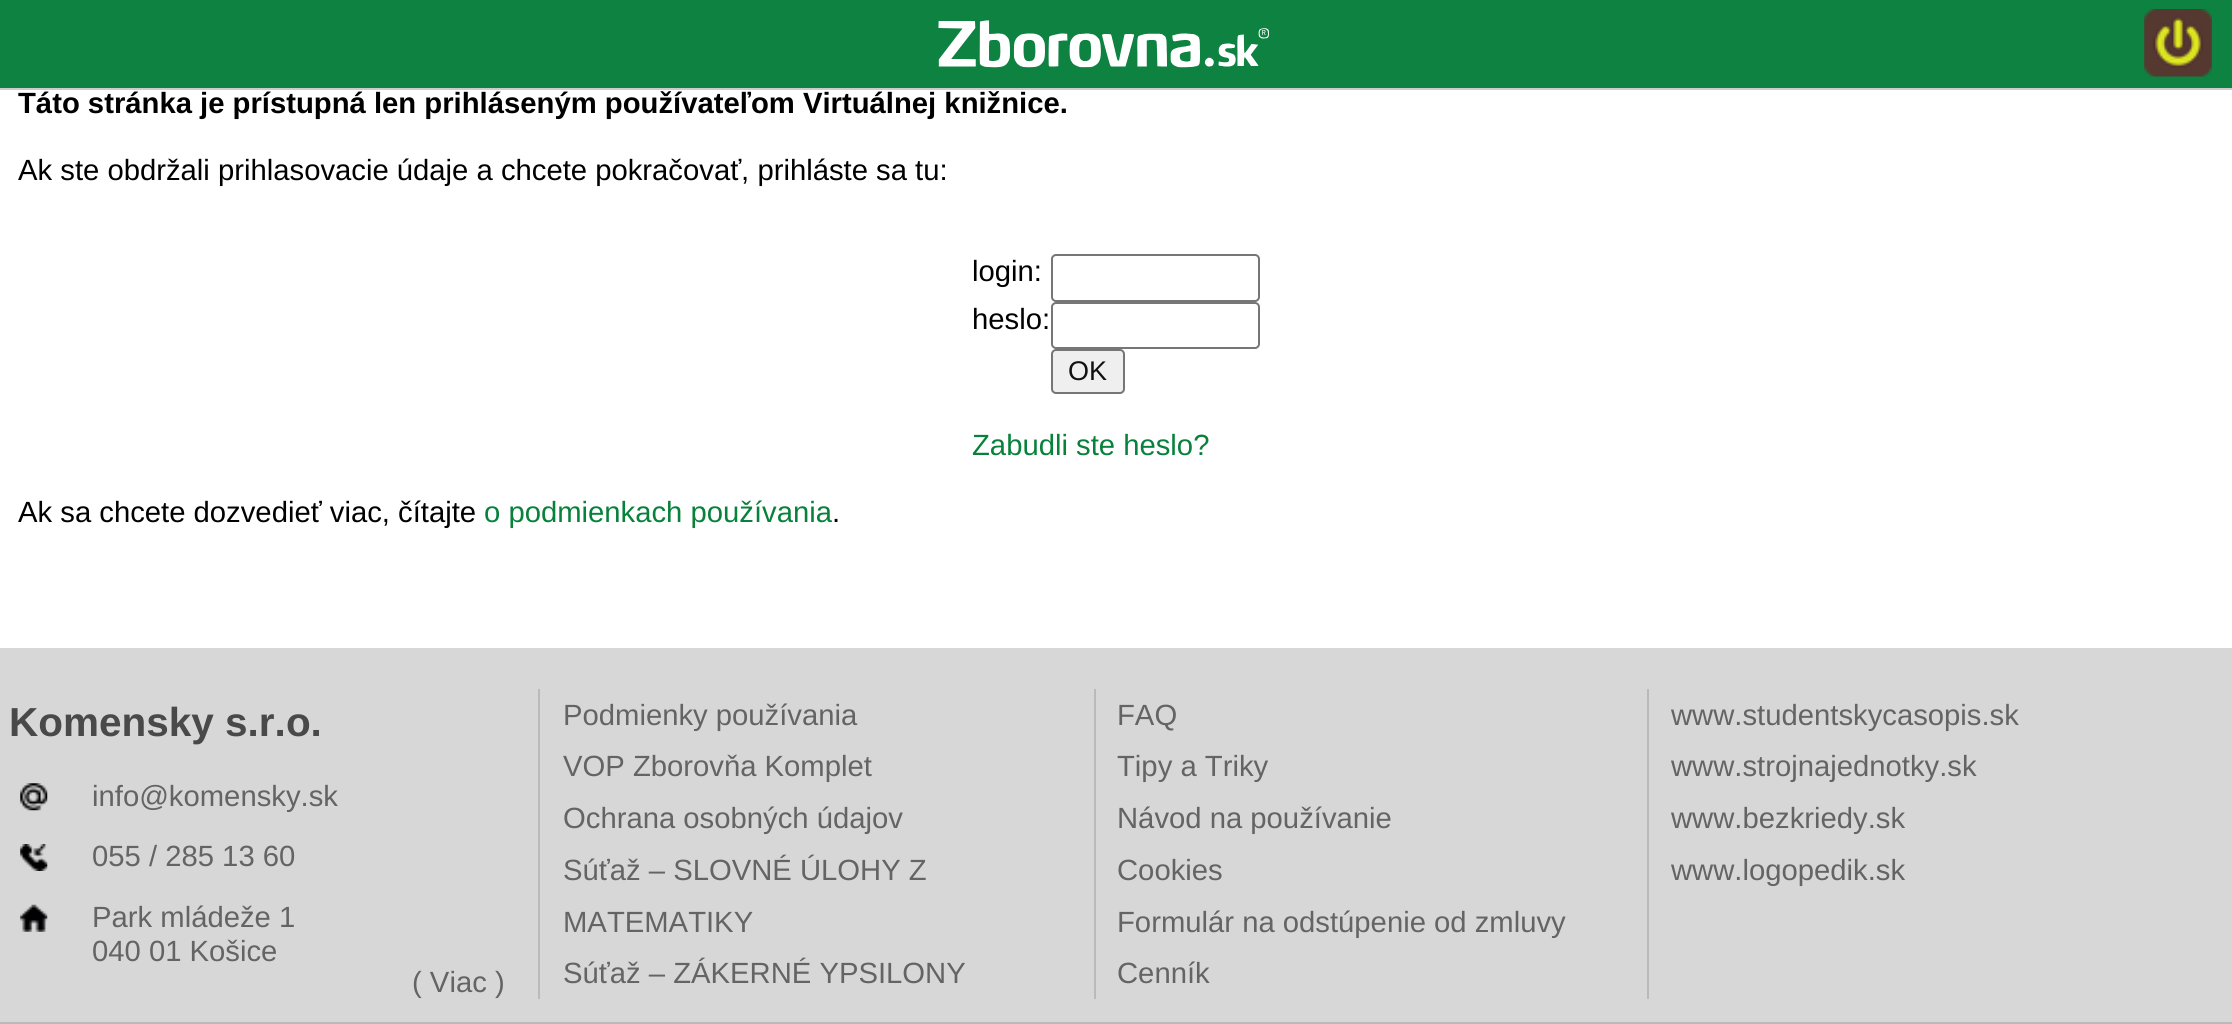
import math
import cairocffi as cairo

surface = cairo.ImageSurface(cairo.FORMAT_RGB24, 2232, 1024)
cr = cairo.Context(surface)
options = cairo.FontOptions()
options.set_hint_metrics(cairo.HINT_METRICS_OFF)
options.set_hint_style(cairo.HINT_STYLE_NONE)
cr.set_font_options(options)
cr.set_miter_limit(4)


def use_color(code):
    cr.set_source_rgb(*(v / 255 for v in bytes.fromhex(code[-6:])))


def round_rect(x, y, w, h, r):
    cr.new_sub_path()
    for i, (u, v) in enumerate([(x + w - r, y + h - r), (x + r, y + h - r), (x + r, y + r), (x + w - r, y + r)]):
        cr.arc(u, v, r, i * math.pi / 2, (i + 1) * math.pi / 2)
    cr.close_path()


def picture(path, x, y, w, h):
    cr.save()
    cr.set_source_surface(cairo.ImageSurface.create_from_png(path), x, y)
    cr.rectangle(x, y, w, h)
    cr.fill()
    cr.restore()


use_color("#ffffff")
cr.paint()
use_color("#0d8241")
cr.rectangle(0, 0, 2232, 88)
cr.fill()
use_color("#cccccc")
cr.rectangle(0, 88, 2232, 2)
cr.fill()
picture("img1.png", 938, 20, 331, 48)
picture("img2.png", 2144, 9, 68, 68)
cr.select_font_face("Liberation Sans", cairo.FONT_SLANT_NORMAL, cairo.FONT_WEIGHT_BOLD)
cr.set_font_size(29.25)
use_color("#000000")
cr.move_to(18, 113)
cr.show_text("Táto stránka je prístupná len prihláseným používateľom Virtuálnej knižnice.")
cr.select_font_face("Liberation Sans")
cr.move_to(18, 180)
cr.show_text("Ak ste obdržali prihlasovacie údaje a chcete pokračovať, prihláste sa tu:")
cr.move_to(972, 281)
cr.show_text("login:")
round_rect(1052, 255, 207, 46, 4)
use_color("#767676")
cr.stroke()
use_color("#000000")
cr.move_to(972, 329)
cr.show_text("heslo:")
round_rect(1052, 303, 207, 45, 4)
use_color("#767676")
cr.stroke()
use_color("#efefef")
round_rect(1052, 350, 72, 43, 4)
cr.fill_preserve()
use_color("#767676")
cr.stroke()
cr.set_font_size(27)
use_color("#111111")
cr.move_to(1068, 380)
cr.show_text("OK")
cr.set_font_size(29.25)
use_color("#08813b")
cr.move_to(972, 455)
cr.show_text("Zabudli ste heslo?")
use_color("#000000")
cr.move_to(18, 522)
cr.show_text("Ak sa chcete dozvedieť viac, čítajte")
use_color("#08813b")
cr.move_to(484, 522)
cr.show_text("o podmienkach používania")
use_color("#000000")
cr.move_to(832, 522)
cr.show_text(".")
use_color("#d7d7d7")
cr.rectangle(0, 648, 2232, 374)
cr.fill()
use_color("#bbbaba")
cr.rectangle(538, 689, 2, 310)
cr.fill()
cr.select_font_face("Liberation Sans", cairo.FONT_SLANT_NORMAL, cairo.FONT_WEIGHT_BOLD)
cr.set_font_size(40.5)
use_color("#4a4949")
cr.move_to(9, 736)
cr.show_text("Komensky s.r.o.")
picture("img3.png", 20, 783, 28, 28)
cr.select_font_face("Liberation Sans")
cr.set_font_size(29.25)
use_color("#656464")
cr.move_to(92, 806)
cr.show_text("info@komensky.sk")
picture("img4.png", 20, 844, 28, 27)
cr.move_to(92, 866)
cr.show_text("055 / 285 13 60")
picture("img5.png", 20, 904, 28, 28)
cr.move_to(92, 927)
cr.show_text("Park mládeže 1")
cr.move_to(92, 961)
cr.show_text("040 01 Košice")
cr.move_to(412, 992)
cr.show_text("( Viac )")
use_color("#bbbaba")
cr.rectangle(1094, 689, 2, 310)
cr.fill()
use_color("#656464")
cr.move_to(563, 725)
cr.show_text("Podmienky používania")
cr.move_to(563, 776)
cr.show_text("VOP Zborovňa Komplet")
cr.move_to(563, 828)
cr.show_text("Ochrana osobných údajov")
cr.move_to(563, 880)
cr.show_text("Súťaž – SLOVNÉ ÚLOHY Z")
cr.move_to(563, 932)
cr.show_text("MATEMATIKY")
cr.move_to(563, 983)
cr.show_text("Súťaž – ZÁKERNÉ YPSILONY")
use_color("#bbbaba")
cr.rectangle(1647, 689, 2, 310)
cr.fill()
use_color("#656464")
cr.move_to(1117, 725)
cr.show_text("FAQ")
cr.move_to(1117, 776)
cr.show_text("Tipy a Triky")
cr.move_to(1117, 828)
cr.show_text("Návod na používanie")
cr.move_to(1117, 880)
cr.show_text("Cookies")
cr.move_to(1117, 932)
cr.show_text("Formulár na odstúpenie od zmluvy")
cr.move_to(1117, 983)
cr.show_text("Cenník")
cr.move_to(1671, 725)
cr.show_text("www.studentskycasopis.sk")
cr.move_to(1671, 776)
cr.show_text("www.strojnajednotky.sk")
cr.move_to(1671, 828)
cr.show_text("www.bezkriedy.sk")
cr.move_to(1671, 880)
cr.show_text("www.logopedik.sk")
use_color("#bbbaba")
cr.rectangle(0, 1022, 2232, 2)
cr.fill()
surface.write_to_png("result.png")
